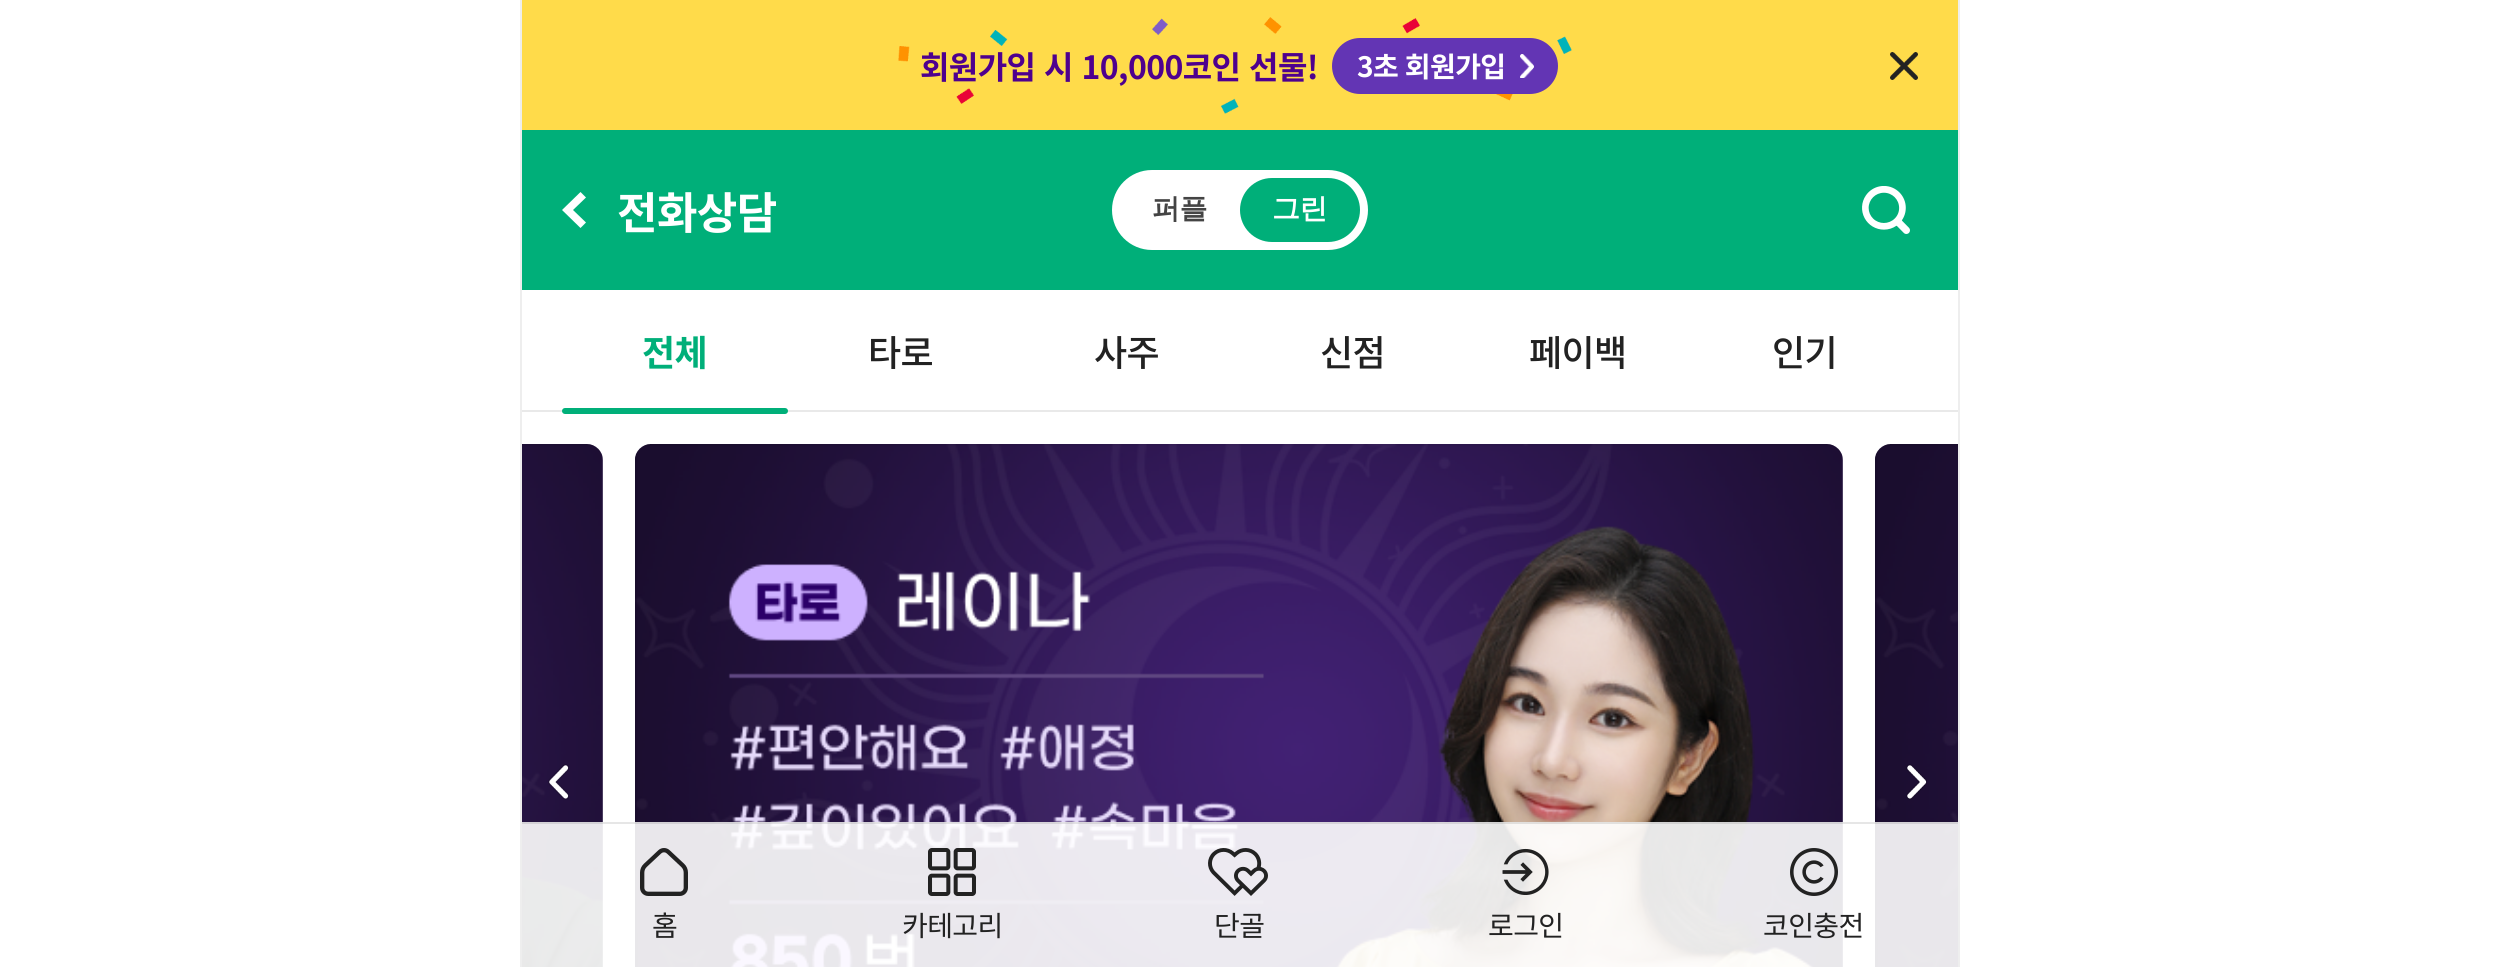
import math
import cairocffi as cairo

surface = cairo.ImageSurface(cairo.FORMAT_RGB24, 2507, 967)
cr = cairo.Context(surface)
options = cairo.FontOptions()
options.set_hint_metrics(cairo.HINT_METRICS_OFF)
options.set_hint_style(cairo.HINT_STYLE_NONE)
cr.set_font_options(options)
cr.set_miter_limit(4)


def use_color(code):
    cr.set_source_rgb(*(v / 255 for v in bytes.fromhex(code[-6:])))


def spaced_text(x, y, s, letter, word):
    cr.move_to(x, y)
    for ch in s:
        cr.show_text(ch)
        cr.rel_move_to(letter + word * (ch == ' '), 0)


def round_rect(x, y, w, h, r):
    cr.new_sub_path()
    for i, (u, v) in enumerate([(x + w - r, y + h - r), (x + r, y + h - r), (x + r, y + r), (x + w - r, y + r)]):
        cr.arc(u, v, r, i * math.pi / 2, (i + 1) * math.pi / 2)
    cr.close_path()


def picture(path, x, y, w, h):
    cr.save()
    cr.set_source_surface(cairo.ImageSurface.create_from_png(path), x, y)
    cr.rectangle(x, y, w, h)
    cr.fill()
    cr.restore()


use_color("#ffffff")
cr.paint()
use_color("#eeeeee")
cr.rectangle(1958, 0, 2, 967)
cr.fill()
cr.rectangle(520, 0, 2, 967)
cr.fill()
picture("img1.png", 522, 0, 1436, 130)
cr.select_font_face("Noto Sans KR", cairo.FONT_SLANT_NORMAL, cairo.FONT_WEIGHT_BOLD)
cr.set_font_size(32)
use_color("#4e008e")
spaced_text(920, 79, "회원가입 시 10,000코인 선물!", -0.6, 2)
use_color("#6335b4")
round_rect(1332, 38, 226, 56, 28)
cr.fill()
cr.set_font_size(28)
use_color("#ffffff")
spaced_text(1357, 77, "3초 회원가입", -0.6, 1)
picture("img2.png", 1520, 54, 14, 24)
picture("img3.png", 1890, 52, 28, 28)
use_color("#00af79")
cr.rectangle(522, 130, 1436, 160)
cr.fill()
use_color("#ffffff")
cr.new_path()
cr.move_to(562, 210)
cr.line_to(580.5, 228)
cr.line_to(586, 222.5)
cr.line_to(573, 210)
cr.line_to(586, 197.5)
cr.line_to(580.5, 192)
cr.close_path()
cr.fill()
cr.set_font_size(44)
spaced_text(617, 229, "전화상담", -0.6, 0)
round_rect(1112, 170, 256, 80, 40)
cr.fill()
cr.select_font_face("WenQuanYi Zen Hei", cairo.FONT_SLANT_NORMAL, cairo.FONT_WEIGHT_BOLD)
cr.set_font_size(28)
use_color("#444444")
spaced_text(1152, 218, "퍼플", -0.6, 0)
use_color("#00af79")
round_rect(1240, 178, 120, 64, 32)
cr.fill()
use_color("#ffffff")
spaced_text(1272, 218, "그린", -0.6, 0)
picture("img4.png", 1862, 186, 48, 48)
use_color("#e9e9e9")
cr.rectangle(522, 410, 1436, 2)
cr.fill()
cr.select_font_face("Noto Sans KR", cairo.FONT_SLANT_NORMAL, cairo.FONT_WEIGHT_BOLD)
cr.set_font_size(36)
use_color("#00af79")
spaced_text(642, 366, "전체", -0.6, 0)
round_rect(562, 408, 226, 6, 3)
cr.fill()
cr.select_font_face("Noto Sans KR Medium")
use_color("#222222")
spaced_text(868, 366, "타로", -0.6, 0)
spaced_text(1094, 366, "사주", -0.6, 0)
spaced_text(1320, 366, "신점", -0.6, 0)
spaced_text(1529, 366, "페이백", -0.6, 0)
spaced_text(1772, 366, "인기", -0.6, 0)
picture("img5.png", 522, 444, 81, 523)
picture("img6.png", 635, 444, 1208, 523)
picture("img7.png", 1875, 444, 83, 523)
picture("img8.png", 548, 764, 21, 36)
picture("img9.png", 1906, 764, 21, 36)
cr.set_source_rgba(1, 1, 1, 0.9)
cr.rectangle(522, 822, 1436, 145)
cr.fill()
cr.set_source_rgba(0, 0, 0, 0.1)
cr.rectangle(522, 822, 1436, 2)
cr.fill()
picture("img10.png", 640, 848, 48, 48)
cr.select_font_face("Noto Sans KR")
cr.set_font_size(28)
use_color("#222222")
spaced_text(652, 936, "홈", -0.6, 0)
picture("img11.png", 928, 848, 48, 48)
spaced_text(902, 936, "카테고리", -0.6, 0)
picture("img12.png", 1208, 848, 60, 48)
spaced_text(1214, 936, "단골", -0.6, 0)
picture("img13.png", 1502, 848, 47, 47)
spaced_text(1488, 936, "로그인", -0.6, 0)
picture("img14.png", 1790, 848, 48, 48)
spaced_text(1763, 936, "코인충전", -0.6, 0)
surface.write_to_png("result.png")
